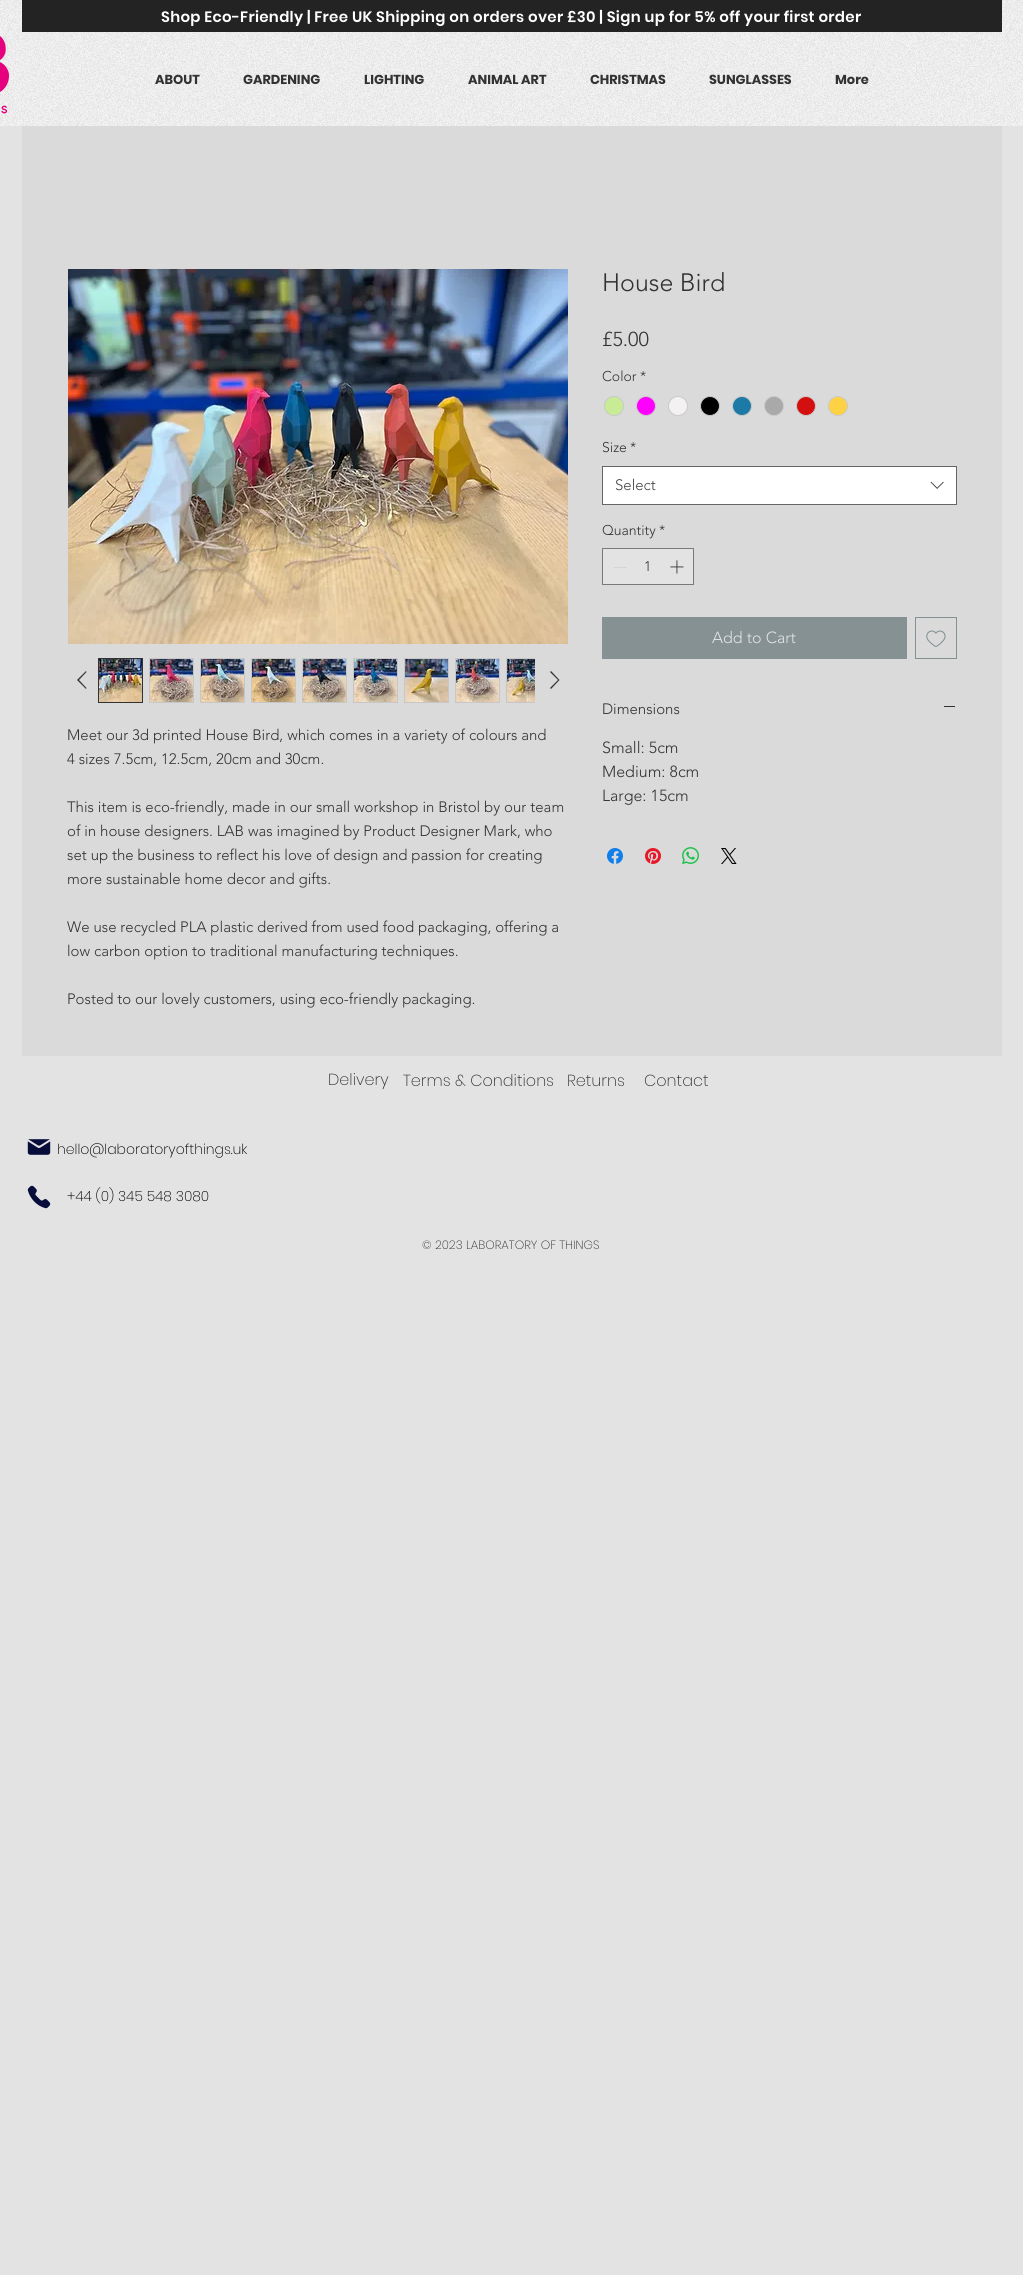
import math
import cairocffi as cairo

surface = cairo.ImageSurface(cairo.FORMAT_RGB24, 1023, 2275)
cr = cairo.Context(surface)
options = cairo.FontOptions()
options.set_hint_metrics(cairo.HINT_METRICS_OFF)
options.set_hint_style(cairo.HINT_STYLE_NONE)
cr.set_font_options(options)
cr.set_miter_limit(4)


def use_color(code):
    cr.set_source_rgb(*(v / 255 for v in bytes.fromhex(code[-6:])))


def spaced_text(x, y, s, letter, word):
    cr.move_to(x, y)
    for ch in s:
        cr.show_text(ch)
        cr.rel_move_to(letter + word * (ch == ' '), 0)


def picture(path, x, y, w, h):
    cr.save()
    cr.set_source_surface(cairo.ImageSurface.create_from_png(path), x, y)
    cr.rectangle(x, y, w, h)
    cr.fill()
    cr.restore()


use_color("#e3e3e3")
cr.paint()
use_color("#f3f3f3")
cr.rectangle(0, 0, 1023, 126)
cr.fill()
picture("img1.png", 0, 0, 1023, 126)
use_color("#242323")
cr.rectangle(22, 0, 980, 32)
cr.fill()
cr.select_font_face("Poppins SemiBold")
cr.set_font_size(15)
use_color("#ffffff")
spaced_text(161, 22, "Shop Eco-Friendly | Free UK Shipping on orders over £30 | Sign up for 5% off your first order", 0.3, 0)
picture("img2.png", 0, 36, 9, 78)
cr.select_font_face("Poppins", cairo.FONT_SLANT_NORMAL, cairo.FONT_WEIGHT_BOLD)
cr.set_font_size(13)
use_color("#323232")
cr.move_to(155, 84)
cr.show_text("ABOUT")
cr.move_to(243, 84)
cr.show_text("GARDENING")
cr.move_to(364, 84)
cr.show_text("LIGHTING")
cr.move_to(468, 84)
cr.show_text("ANIMAL ART")
cr.move_to(590, 84)
cr.show_text("CHRISTMAS")
cr.move_to(709, 84)
cr.show_text("SUNGLASSES")
cr.move_to(835, 84)
cr.show_text("More")
use_color("#dadada")
cr.rectangle(22, 126, 980, 930)
cr.fill()
cr.select_font_face("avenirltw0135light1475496 Light")
cr.set_font_size(25)
use_color("#323232")
cr.move_to(602, 291)
cr.show_text("House Bird")
cr.set_font_size(20)
cr.move_to(602, 346)
cr.show_text("£5.00")
cr.set_font_size(14)
cr.move_to(602, 381)
cr.show_text("Color")
cr.move_to(640, 381)
cr.show_text("*")
use_color("#c8eb95")
cr.new_path()
cr.arc(614, 406, 9.5, 0, 2 * math.pi)
cr.fill_preserve()
use_color("#c9c9c9")
cr.set_line_width(1)
cr.stroke()
use_color("#ff00ff")
cr.arc(646, 406, 9.5, 0, 2 * math.pi)
cr.fill_preserve()
use_color("#c9c9c9")
cr.stroke()
use_color("#f3f1f1")
cr.arc(678, 406, 9.5, 0, 2 * math.pi)
cr.fill_preserve()
use_color("#c9c9c9")
cr.stroke()
use_color("#000000")
cr.arc(710, 406, 9.5, 0, 2 * math.pi)
cr.fill_preserve()
use_color("#c9c9c9")
cr.stroke()
use_color("#1d79a6")
cr.arc(742, 406, 9.5, 0, 2 * math.pi)
cr.fill_preserve()
use_color("#c9c9c9")
cr.stroke()
use_color("#a9a9a9")
cr.arc(774, 406, 9.5, 0, 2 * math.pi)
cr.fill_preserve()
use_color("#c9c9c9")
cr.stroke()
use_color("#d40f0f")
cr.arc(806, 406, 9.5, 0, 2 * math.pi)
cr.fill_preserve()
use_color("#c9c9c9")
cr.stroke()
use_color("#ffd145")
cr.arc(838, 406, 9.5, 0, 2 * math.pi)
cr.fill_preserve()
use_color("#c9c9c9")
cr.stroke()
use_color("#323232")
cr.move_to(602, 452)
cr.show_text("Size")
cr.move_to(630, 452)
cr.show_text("*")
use_color("#ffffff")
cr.rectangle(602.5, 466.5, 354, 38)
cr.fill_preserve()
use_color("#666666")
cr.stroke()
cr.set_font_size(15)
use_color("#444444")
cr.move_to(615, 490)
cr.show_text("Select")
picture("img3.png", 930, 481, 14, 8)
cr.set_font_size(14)
use_color("#323232")
cr.move_to(602, 535)
cr.show_text("Quantity")
cr.move_to(659, 535)
cr.show_text("*")
use_color("#e3e3e3")
cr.rectangle(602.5, 548.5, 91, 36)
cr.fill_preserve()
use_color("#797979")
cr.stroke()
use_color("#d5d5d5")
cr.rectangle(614, 567, 13, 1)
cr.fill()
use_color("#323232")
cr.move_to(644, 571)
cr.show_text("1")
picture("img4.png", 670, 560, 14, 14)
use_color("#869194")
cr.rectangle(602, 617, 305, 42)
cr.fill()
cr.set_font_size(16)
use_color("#e3e3e3")
cr.move_to(712, 643)
cr.show_text("Add to Cart")
cr.rectangle(915.5, 617.5, 41, 41)
use_color("#869194")
cr.stroke()
picture("img5.png", 926, 630, 20, 17)
cr.set_font_size(15)
use_color("#323232")
cr.move_to(602, 714)
cr.show_text("Dimensions")
cr.rectangle(944, 706, 11, 1)
cr.fill()
cr.set_font_size(16)
cr.move_to(602, 753)
cr.show_text("Small: 5cm")
cr.move_to(602, 777)
cr.show_text("Medium: 8cm")
cr.move_to(602, 801)
cr.show_text("Large: 15cm")
picture("img6.png", 607, 848, 16, 16)
picture("img7.png", 645, 848, 16, 16)
picture("img8.png", 682, 847, 17, 17)
picture("img9.png", 721, 848, 16, 16)
picture("img10.png", 68, 269, 500, 375)
cr.set_fill_rule(cairo.FILL_RULE_EVEN_ODD)
cr.new_path()
cr.move_to(86, 671)
cr.line_to(86.5, 672)
cr.line_to(79, 680)
cr.line_to(86.5, 688)
cr.line_to(86, 689)
cr.line_to(77, 680)
cr.close_path()
cr.fill()
cr.rectangle(98.5, 658.5, 44, 44)
cr.stroke()
picture("img11.png", 99, 659, 43, 43)
use_color("#c7c7c7")
cr.rectangle(149, 658, 45, 45)
cr.fill()
picture("img12.png", 150, 659, 43, 43)
cr.rectangle(200, 658, 45, 45)
cr.fill()
picture("img13.png", 201, 659, 43, 43)
cr.rectangle(251, 658, 45, 45)
cr.fill()
picture("img14.png", 252, 659, 43, 43)
cr.rectangle(302, 658, 45, 45)
cr.fill()
picture("img15.png", 303, 659, 43, 43)
cr.rectangle(353, 658, 45, 45)
cr.fill()
picture("img16.png", 354, 659, 43, 43)
cr.rectangle(404, 658, 45, 45)
cr.fill()
picture("img17.png", 405, 659, 43, 43)
cr.rectangle(455, 658, 45, 45)
cr.fill()
picture("img18.png", 456, 659, 43, 43)
cr.rectangle(506, 658, 29, 45)
cr.fill()
picture("img19.png", 507, 659, 28, 43)
use_color("#323232")
cr.new_path()
cr.move_to(551, 671)
cr.line_to(559.5, 680)
cr.line_to(551, 689)
cr.line_to(550, 688)
cr.line_to(558, 680)
cr.line_to(550, 672)
cr.close_path()
cr.fill()
cr.set_font_size(15)
cr.move_to(67, 740)
cr.show_text("Meet our 3d printed House Bird, which comes in a variety of colours and")
cr.move_to(67, 764)
cr.show_text("4 sizes 7.5cm, 12.5cm, 20cm and 30cm.")
cr.move_to(67, 812)
cr.show_text("This item is eco-friendly, made in our small workshop in Bristol by our team")
cr.move_to(67, 836)
cr.show_text("of in house designers. LAB was imagined by Product Designer Mark, who")
cr.move_to(67, 860)
cr.show_text("set up the business to reflect his love of design and passion for creating")
cr.move_to(67, 884)
cr.show_text("more sustainable home decor and gifts.")
cr.move_to(67, 932)
cr.show_text("We use recycled PLA plastic derived from used food packaging, offering a")
cr.move_to(67, 956)
cr.show_text("low carbon option to traditional manufacturing techniques.")
cr.move_to(67, 1004)
cr.show_text("Posted to our lovely customers, using eco-friendly packaging.")
cr.select_font_face("Poppins ExtraLight")
cr.set_font_size(16)
cr.move_to(328, 1085)
cr.show_text("Delivery")
cr.move_to(403, 1086)
cr.show_text("Terms & Conditions")
cr.move_to(567, 1086)
cr.show_text("Returns")
cr.move_to(644, 1086)
cr.show_text("Contact")
picture("img20.png", 27, 1139, 24, 16)
cr.set_font_size(14)
use_color("#000000")
cr.move_to(57, 1154)
cr.show_text("hello@laboratoryofthings.uk")
picture("img21.png", 27, 1185, 24, 24)
cr.move_to(67, 1201)
cr.show_text("+44 (0) 345 548 3080")
cr.set_font_size(12)
use_color("#323232")
cr.move_to(422, 1249)
cr.show_text("© 2023 LABORATORY OF THINGS")
surface.write_to_png("result.png")
